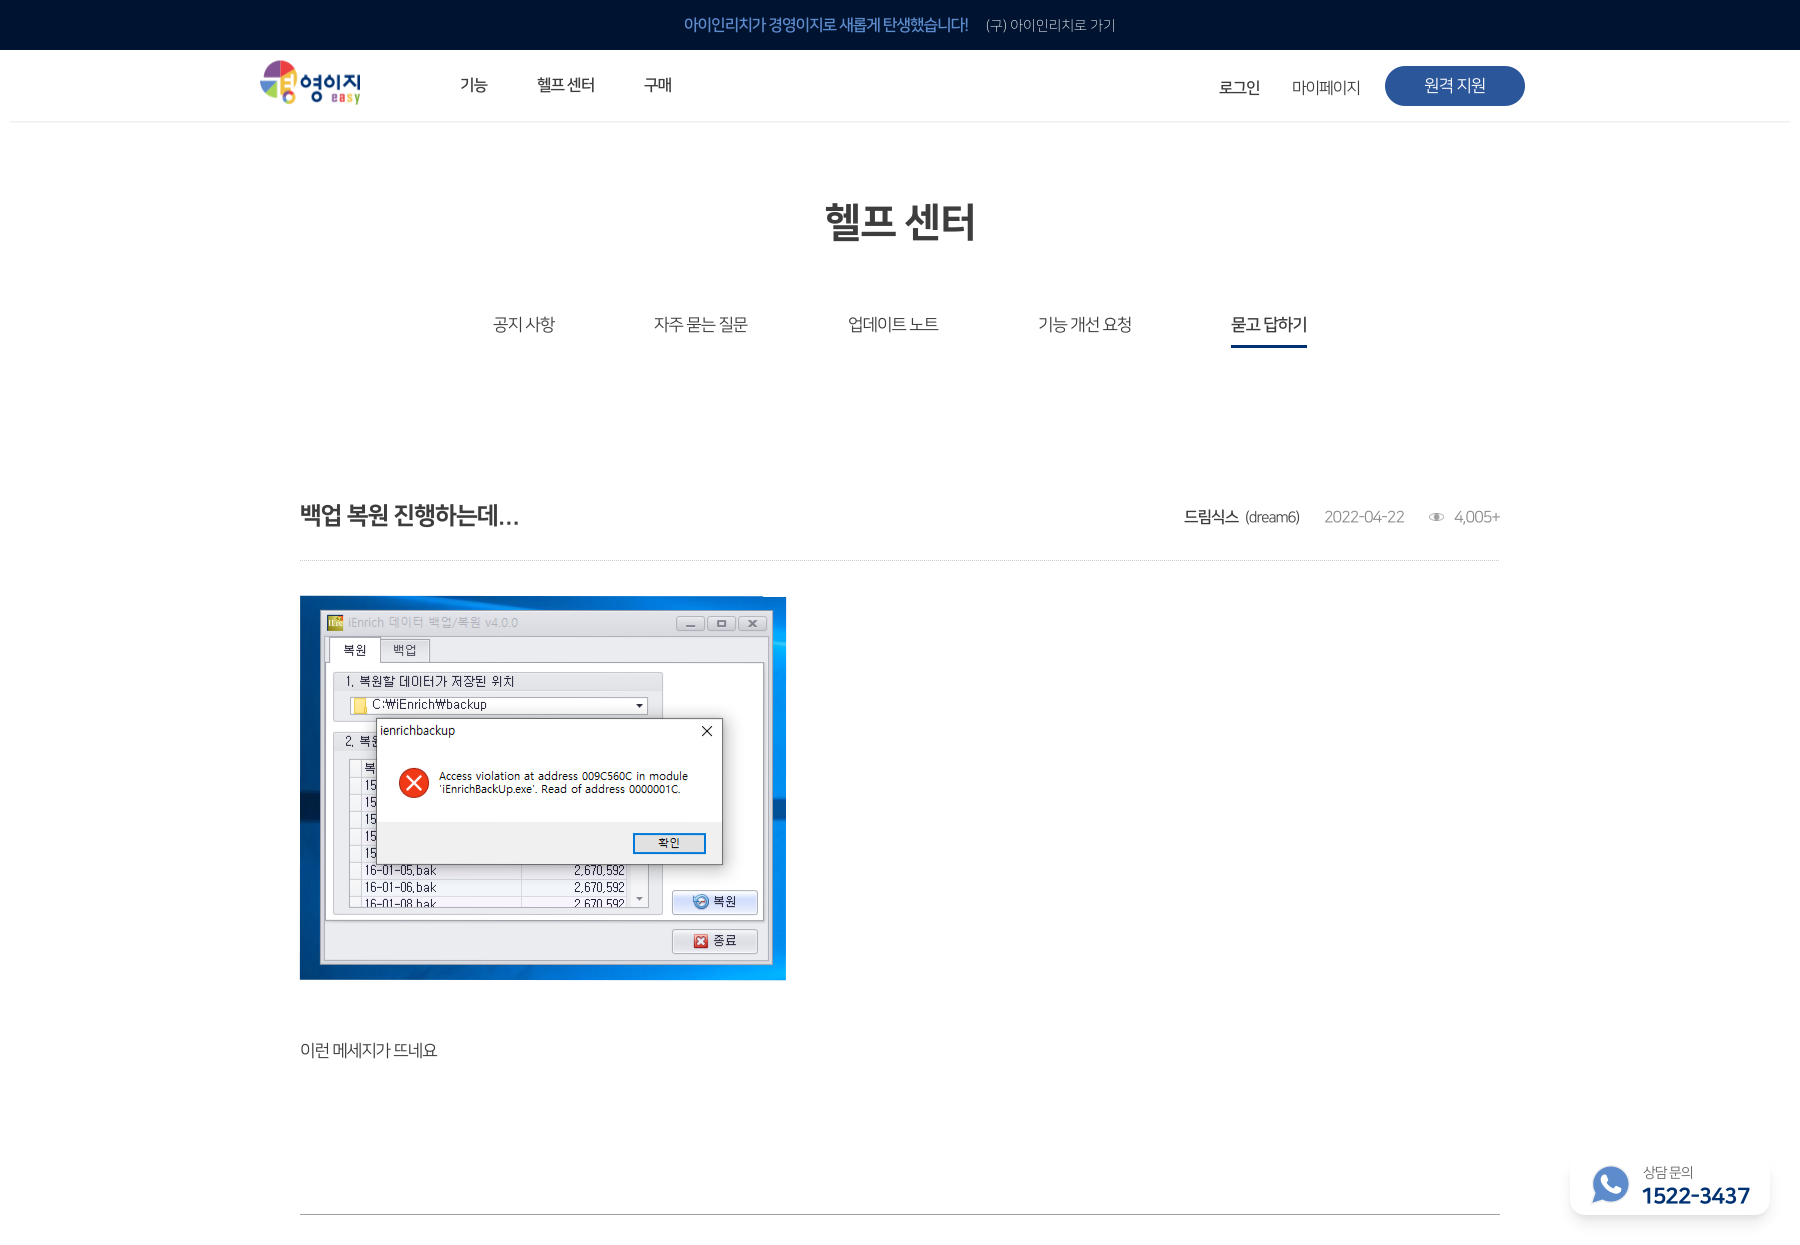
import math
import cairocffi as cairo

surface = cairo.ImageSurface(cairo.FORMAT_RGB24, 1800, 1245)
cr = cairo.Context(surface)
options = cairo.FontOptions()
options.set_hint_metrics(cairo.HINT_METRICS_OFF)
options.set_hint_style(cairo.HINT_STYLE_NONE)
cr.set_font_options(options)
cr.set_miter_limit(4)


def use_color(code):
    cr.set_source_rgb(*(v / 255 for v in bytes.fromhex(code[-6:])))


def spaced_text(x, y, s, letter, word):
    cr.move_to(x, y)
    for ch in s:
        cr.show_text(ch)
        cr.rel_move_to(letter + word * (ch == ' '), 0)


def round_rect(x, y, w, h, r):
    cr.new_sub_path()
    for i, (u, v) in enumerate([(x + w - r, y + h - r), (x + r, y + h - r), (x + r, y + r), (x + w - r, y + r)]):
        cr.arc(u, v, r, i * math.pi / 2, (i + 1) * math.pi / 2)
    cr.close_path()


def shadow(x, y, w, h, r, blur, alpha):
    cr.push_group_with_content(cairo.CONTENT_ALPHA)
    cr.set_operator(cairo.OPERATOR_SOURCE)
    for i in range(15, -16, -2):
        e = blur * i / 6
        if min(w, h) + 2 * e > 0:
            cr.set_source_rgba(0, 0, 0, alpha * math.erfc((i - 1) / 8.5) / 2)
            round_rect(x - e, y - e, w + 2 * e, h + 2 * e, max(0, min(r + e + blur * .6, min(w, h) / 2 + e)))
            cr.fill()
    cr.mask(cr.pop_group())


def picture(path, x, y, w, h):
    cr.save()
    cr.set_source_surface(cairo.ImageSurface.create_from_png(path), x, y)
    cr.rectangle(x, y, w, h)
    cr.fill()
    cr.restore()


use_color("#ffffff")
cr.paint()
cr.save()
cr.rectangle(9, 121, 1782, 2)
cr.clip()
use_color("#212326")
shadow(10, 21, 1780, 100, 0, 1.5, 0.2)
cr.restore()
use_color("#001432")
cr.rectangle(0, 0, 1800, 50)
cr.fill()
cr.select_font_face("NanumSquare", cairo.FONT_SLANT_NORMAL, cairo.FONT_WEIGHT_BOLD)
cr.set_font_size(16)
use_color("#5d8bcc")
spaced_text(684, 30, "아이인리치가 경영이지로 새롭게 탄생했습니다!", -1, 0)
cr.select_font_face("NanumSquare Light")
cr.set_font_size(14)
use_color("#f5f5f5")
cr.move_to(986, 30)
cr.show_text("(구) 아이인리치로 가기")
picture("img1.png", 260, 60, 100, 45)
cr.select_font_face("NanumSquare", cairo.FONT_SLANT_NORMAL, cairo.FONT_WEIGHT_BOLD)
cr.set_font_size(16)
use_color("#3d3d3d")
spaced_text(460, 90, "기능", -1, 0)
spaced_text(537, 90, "헬프 센터", -1, 0)
spaced_text(644, 90, "구매", -1, 0)
spaced_text(1219, 93, "로그인", -1, 0)
cr.select_font_face("NanumSquare")
spaced_text(1292, 93, "마이페이지", -1, 0)
use_color("#2b579a")
cr.new_path()
cr.move_to(1405, 66)
cr.line_to(1505, 66)
cr.curve_to(1516, 66, 1525, 75, 1525, 86)
cr.curve_to(1525, 97, 1516, 106, 1505, 106)
cr.line_to(1405, 106)
cr.curve_to(1394, 106, 1385, 97, 1385, 86)
cr.curve_to(1385, 75, 1394, 66, 1405, 66)
cr.close_path()
cr.fill()
cr.set_font_size(17)
use_color("#ffffff")
cr.save()
cr.translate(1424, 91)
cr.rotate(0.1 * math.pi / 180)
spaced_text(0, 0, "원격 지원", -1, 0)
cr.restore()
cr.select_font_face("NanumSquare ExtraBold")
cr.set_font_size(40)
use_color("#3d3d3d")
spaced_text(825, 235, "헬프 센터", -1, 0)
cr.select_font_face("NanumSquare")
cr.set_font_size(17)
spaced_text(493, 330, "공지 사항", -1, 0)
spaced_text(654, 330, "자주 묻는 질문", -1, 0)
spaced_text(848, 330, "업데이트 노트", -1, 0)
spaced_text(1038, 330, "기능 개선 요청", -1, 0)
use_color("#003273")
cr.rectangle(1231, 345, 76, 3)
cr.fill()
cr.select_font_face("NanumSquare", cairo.FONT_SLANT_NORMAL, cairo.FONT_WEIGHT_BOLD)
use_color("#3d3d3d")
spaced_text(1231, 330, "묻고 답하기", -1, 0)
cr.new_path()
cr.move_to(300, 560.5)
cr.line_to(1500, 560.5)
use_color("#cccccc")
cr.set_line_width(1)
cr.set_dash([1, 1])
cr.stroke()
cr.select_font_face("NanumSquare ExtraBold")
cr.set_font_size(24)
use_color("#3d3d3d")
spaced_text(300, 523, "백업 복원 진행하는데...", -1, 0)
cr.select_font_face("NanumSquare", cairo.FONT_SLANT_NORMAL, cairo.FONT_WEIGHT_BOLD)
cr.set_font_size(16)
spaced_text(1184, 522, "드림식스", -1, 0)
cr.select_font_face("NanumSquare")
cr.set_font_size(15)
spaced_text(1245, 522, "(dream6)", -1, 0)
cr.set_font_size(16)
use_color("#888888")
spaced_text(1324, 522, "2022-04-22", -1, 0)
picture("img2.png", 1429, 513, 16, 8)
spaced_text(1454, 522, "4,005+", -1, 0)
use_color("#a0a0a0")
cr.rectangle(300, 1214, 1200, 1)
cr.fill()
picture("img3.png", 299, 595, 488, 386)
cr.set_font_size(17)
use_color("#3d3d3d")
spaced_text(300, 1056, "이런 메세지가 뜨네요", -1, 0)
use_color("#000000")
shadow(1572, 1161, 196, 56, 13, 3, 0.05)
shadow(1573, 1168, 194, 54, 12, 7.5, 0.1)
use_color("#ffffff")
round_rect(1570, 1155, 200, 60, 15)
cr.fill()
picture("img4.png", 1590, 1165, 40, 40)
cr.set_font_size(14)
use_color("#666666")
spaced_text(1643, 1177, "상담 문의", -1, 0)
cr.select_font_face("NanumSquare ExtraBold")
cr.set_font_size(22)
use_color("#003273")
spaced_text(1640, 1203, "1522-3437", -1, 0)
surface.write_to_png("result.png")
